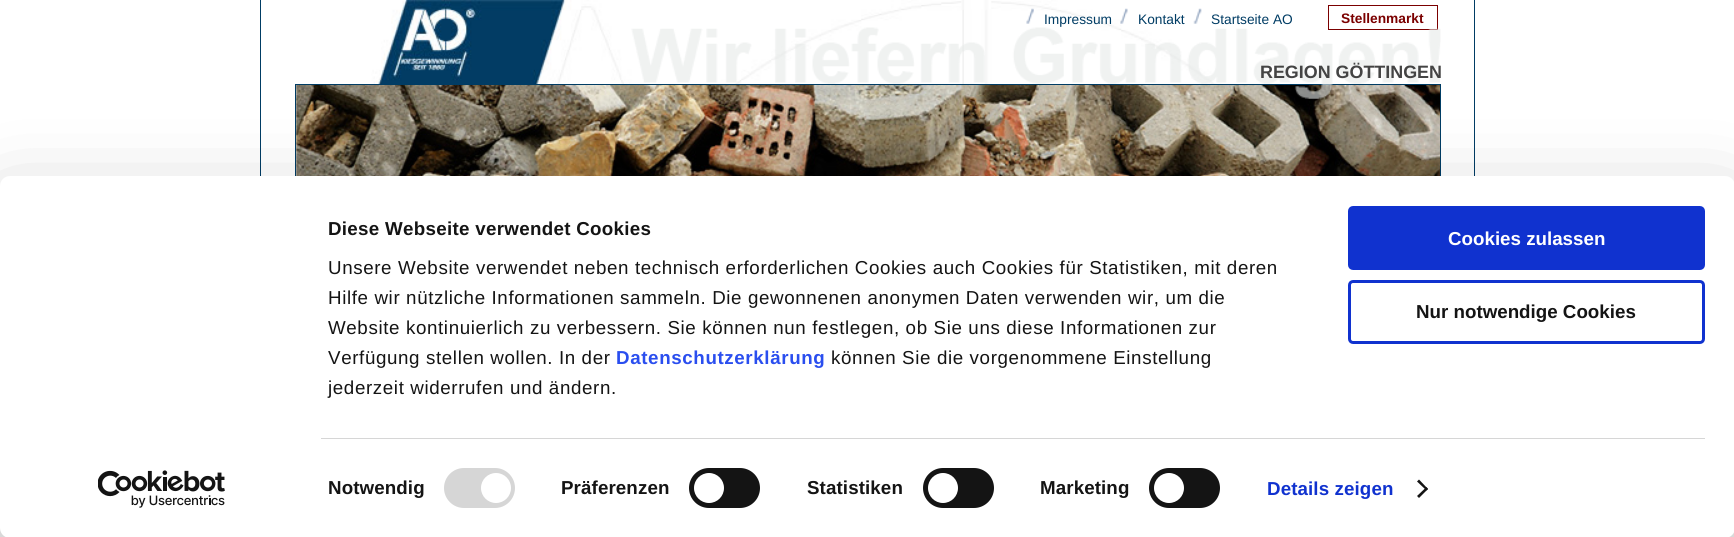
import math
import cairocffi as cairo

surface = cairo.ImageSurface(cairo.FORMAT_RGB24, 1734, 537)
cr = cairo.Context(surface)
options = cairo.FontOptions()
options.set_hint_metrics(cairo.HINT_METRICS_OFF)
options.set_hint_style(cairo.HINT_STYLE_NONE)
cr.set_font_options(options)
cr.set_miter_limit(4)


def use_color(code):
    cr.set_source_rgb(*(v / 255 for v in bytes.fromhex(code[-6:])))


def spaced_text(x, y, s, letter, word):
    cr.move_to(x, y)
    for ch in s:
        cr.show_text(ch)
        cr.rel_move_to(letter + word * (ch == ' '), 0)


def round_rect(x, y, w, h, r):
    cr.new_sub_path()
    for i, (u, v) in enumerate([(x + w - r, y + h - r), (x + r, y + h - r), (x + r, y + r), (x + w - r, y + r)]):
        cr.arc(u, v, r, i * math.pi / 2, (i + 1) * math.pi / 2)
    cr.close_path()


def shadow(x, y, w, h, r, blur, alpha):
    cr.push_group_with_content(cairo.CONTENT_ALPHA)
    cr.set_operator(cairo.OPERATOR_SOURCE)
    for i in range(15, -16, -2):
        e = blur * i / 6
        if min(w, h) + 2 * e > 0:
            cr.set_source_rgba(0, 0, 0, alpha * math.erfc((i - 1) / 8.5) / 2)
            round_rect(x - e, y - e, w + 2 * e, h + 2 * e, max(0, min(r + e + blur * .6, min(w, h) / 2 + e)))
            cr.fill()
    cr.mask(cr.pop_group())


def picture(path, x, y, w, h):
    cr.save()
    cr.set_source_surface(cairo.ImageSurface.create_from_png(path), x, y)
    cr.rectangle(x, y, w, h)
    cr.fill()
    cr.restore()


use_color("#ffffff")
cr.paint()
picture("img1.png", 261, 0, 1093, 176)
use_color("#003c64")
cr.rectangle(1474, 0, 1, 176)
cr.fill()
cr.rectangle(260, 0, 1, 176)
cr.fill()
picture("img2.png", 1026, 8, 8, 16)
cr.select_font_face("Liberation Sans")
cr.set_font_size(13.75)
cr.move_to(1044, 24)
cr.show_text("Impressum")
picture("img3.png", 1120, 8, 8, 16)
cr.move_to(1138, 24)
cr.show_text("Kontakt")
picture("img4.png", 1193, 8, 9, 16)
cr.move_to(1211, 24)
cr.show_text("Startseite AO")
cr.rectangle(1328.5, 5.5, 109, 24)
use_color("#7b0000")
cr.set_line_width(1)
cr.stroke()
cr.select_font_face("Liberation Sans", cairo.FONT_SLANT_NORMAL, cairo.FONT_WEIGHT_BOLD)
cr.move_to(1341, 23)
cr.show_text("Stellenmarkt")
cr.rectangle(295.5, 84.5, 1145, 139)
use_color("#003c64")
cr.stroke()
picture("img6.png", 296, 85, 1144, 91)
picture("img5.png", 631, 27, 810, 72)
cr.set_font_size(17.9)
use_color("#444444")
cr.move_to(1260, 78)
cr.show_text("REGION GÖTTINGEN")
use_color("#000000")
shadow(0, 214, 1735, 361, 10, 44, 0.3)
use_color("#ffffff")
round_rect(0, 176, 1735, 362, 10)
cr.fill()
cr.set_font_size(18.75)
use_color("#141414")
spaced_text(328, 235, "Diese Webseite verwendet Cookies", 0.3, 0)
cr.select_font_face("Liberation Sans")
spaced_text(328, 274, "Unsere Website verwendet neben technisch erforderlichen Cookies auch Cookies für Statistiken, mit deren", 0.62, 0)
spaced_text(328, 304, "Hilfe wir nützliche Informationen sammeln. Die gewonnenen anonymen Daten verwenden wir, um die", 0.62, 0)
spaced_text(328, 334, "Website kontinuierlich zu verbessern. Sie können nun festlegen, ob Sie uns diese Informationen zur", 0.62, 0)
spaced_text(328, 364, "Verfügung stellen wollen. In der", 0.62, 0)
cr.select_font_face("Liberation Sans", cairo.FONT_SLANT_NORMAL, cairo.FONT_WEIGHT_BOLD)
use_color("#2a4eef")
spaced_text(616, 364, "Datenschutzerklärung", 0.62, 0)
cr.select_font_face("Liberation Sans")
use_color("#141414")
spaced_text(831, 364, "können Sie die vorgenommene Einstellung", 0.62, 0)
spaced_text(328, 394, "jederzeit widerrufen und ändern.", 0.62, 0)
use_color("#d6d6d6")
cr.rectangle(321, 438, 1384, 1)
cr.fill()
cr.select_font_face("Liberation Sans", cairo.FONT_SLANT_NORMAL, cairo.FONT_WEIGHT_BOLD)
use_color("#141414")
spaced_text(328, 494, "Notwendig", 0.1, 0)
use_color("#d6d6d6")
round_rect(444, 468, 71, 40, 20)
cr.fill()
use_color("#ffffff")
cr.arc(496, 488, 15, 0, 2 * math.pi)
cr.fill()
use_color("#141414")
spaced_text(561, 494, "Präferenzen", 0.1, 0)
round_rect(689, 468, 71, 40, 20)
cr.fill()
use_color("#ffffff")
cr.arc(709, 488, 15, 0, 2 * math.pi)
cr.fill()
use_color("#141414")
spaced_text(807, 494, "Statistiken", 0.1, 0)
round_rect(923, 468, 71, 40, 20)
cr.fill()
use_color("#ffffff")
cr.arc(943, 488, 15, 0, 2 * math.pi)
cr.fill()
use_color("#141414")
spaced_text(1040, 494, "Marketing", 0.1, 0)
round_rect(1149, 468, 71, 40, 20)
cr.fill()
use_color("#ffffff")
cr.arc(1169, 488, 15, 0, 2 * math.pi)
cr.fill()
use_color("#1032cf")
spaced_text(1267, 495, "Details zeigen", 0.1, 0)
use_color("#141414")
cr.new_path()
cr.move_to(1419, 479.5)
cr.line_to(1428, 489)
cr.line_to(1426.5, 490.5)
cr.line_to(1417, 481.5)
cr.close_path()
cr.fill()
cr.new_path()
cr.move_to(1426.5, 487)
cr.line_to(1428, 489)
cr.line_to(1419, 498)
cr.line_to(1417, 496)
cr.close_path()
cr.fill()
use_color("#1032cf")
round_rect(1349.5, 207.5, 354, 61, 3.5)
cr.fill_preserve()
cr.set_line_width(3)
cr.stroke()
use_color("#ffffff")
cr.move_to(1448, 245)
cr.show_text("Cookies zulassen")
round_rect(1349.5, 281.5, 354, 61, 3.5)
use_color("#1032cf")
cr.stroke()
use_color("#141414")
cr.move_to(1416, 318)
cr.show_text("Nur notwendige Cookies")
picture("img7.png", 98, 470, 127, 38)
surface.write_to_png("result.png")
